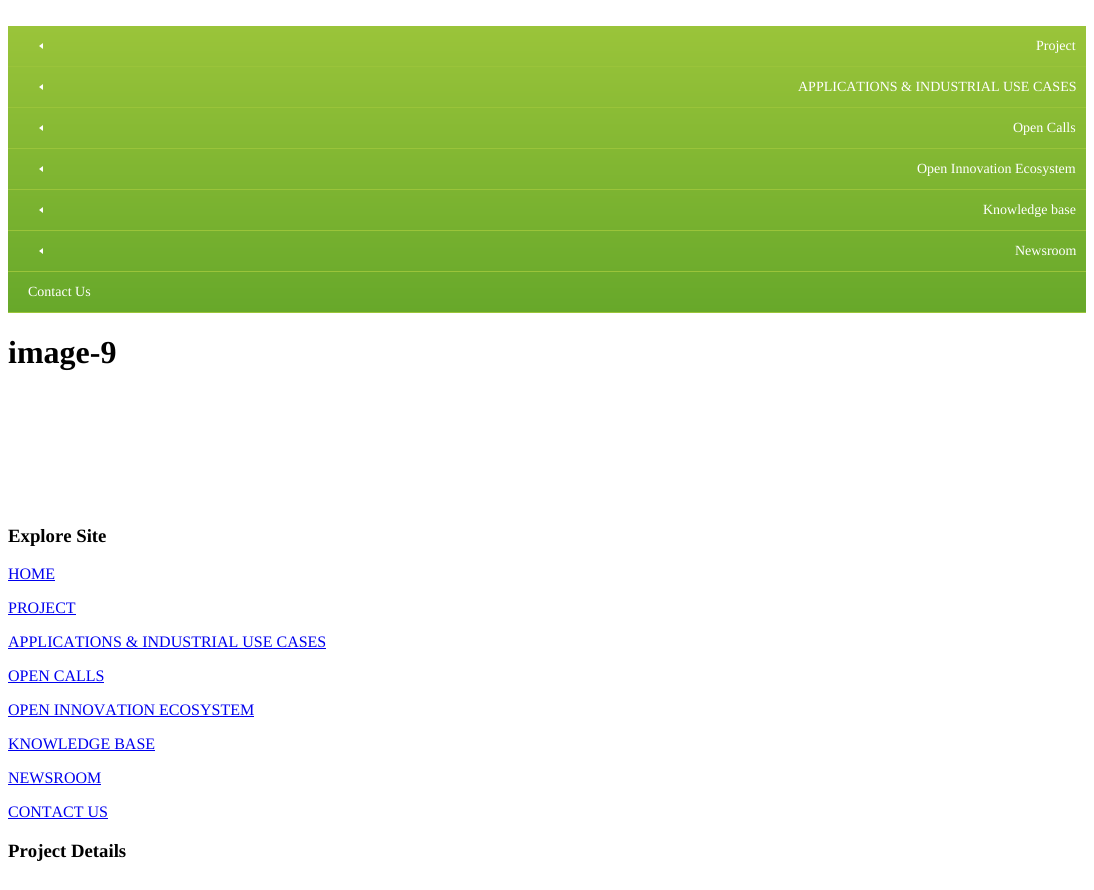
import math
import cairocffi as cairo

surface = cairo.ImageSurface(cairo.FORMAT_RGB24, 1094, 890)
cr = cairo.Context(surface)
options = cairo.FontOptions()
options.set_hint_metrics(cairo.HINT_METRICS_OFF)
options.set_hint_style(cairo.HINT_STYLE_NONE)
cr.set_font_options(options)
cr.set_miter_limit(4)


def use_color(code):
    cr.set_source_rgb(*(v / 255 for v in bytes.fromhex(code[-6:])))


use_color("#ffffff")
cr.paint()
gradient = cairo.LinearGradient(547, 26, 547, 313)
gradient.add_color_stop_rgba(0, 0.604, 0.769, 0.227, 1)
gradient.add_color_stop_rgba(1, 0.404, 0.659, 0.165, 1)
cr.set_source(gradient)
cr.rectangle(8, 26, 1078, 286)
cr.fill()
use_color("#9ac43a")
cr.rectangle(8, 66, 1078, 1)
cr.fill()
use_color("#ffffff")
cr.new_path()
cr.move_to(43, 49)
cr.line_to(39, 46)
cr.line_to(43, 43)
cr.close_path()
cr.fill()
cr.select_font_face("Liberation Serif")
cr.set_font_size(14)
cr.move_to(1036, 50)
cr.show_text("Project")
use_color("#9ac43a")
cr.rectangle(8, 107, 1078, 1)
cr.fill()
use_color("#ffffff")
cr.new_path()
cr.move_to(43, 90)
cr.line_to(39, 87)
cr.line_to(43, 84)
cr.close_path()
cr.fill()
cr.move_to(798, 91)
cr.show_text("APPLICATIONS & INDUSTRIAL USE CASES")
use_color("#9ac43a")
cr.rectangle(8, 148, 1078, 1)
cr.fill()
use_color("#ffffff")
cr.new_path()
cr.move_to(43, 131)
cr.line_to(39, 128)
cr.line_to(43, 125)
cr.close_path()
cr.fill()
cr.move_to(1013, 132)
cr.show_text("Open Calls")
use_color("#9ac43a")
cr.rectangle(8, 189, 1078, 1)
cr.fill()
use_color("#ffffff")
cr.new_path()
cr.move_to(43, 172)
cr.line_to(39, 169)
cr.line_to(43, 166)
cr.close_path()
cr.fill()
cr.move_to(917, 173)
cr.show_text("Open Innovation Ecosystem")
use_color("#9ac43a")
cr.rectangle(8, 230, 1078, 1)
cr.fill()
use_color("#ffffff")
cr.new_path()
cr.move_to(43, 213)
cr.line_to(39, 210)
cr.line_to(43, 207)
cr.close_path()
cr.fill()
cr.move_to(983, 214)
cr.show_text("Knowledge base")
use_color("#9ac43a")
cr.rectangle(8, 271, 1078, 1)
cr.fill()
use_color("#ffffff")
cr.new_path()
cr.move_to(43, 254)
cr.line_to(39, 251)
cr.line_to(43, 248)
cr.close_path()
cr.fill()
cr.move_to(1015, 255)
cr.show_text("Newsroom")
use_color("#9ac43a")
cr.rectangle(8, 312, 1078, 1)
cr.fill()
use_color("#ffffff")
cr.move_to(28, 296)
cr.show_text("Contact Us")
cr.select_font_face("Liberation Serif", cairo.FONT_SLANT_NORMAL, cairo.FONT_WEIGHT_BOLD)
cr.set_font_size(32)
use_color("#000000")
cr.move_to(8, 363)
cr.show_text("image-9")
cr.set_font_size(18.75)
cr.move_to(8, 542)
cr.show_text("Explore Site")
cr.select_font_face("Liberation Serif")
cr.set_font_size(16)
use_color("#0000ee")
cr.move_to(8, 579)
cr.show_text("HOME")
cr.rectangle(8, 580, 47, 1)
cr.fill()
cr.move_to(8, 613)
cr.show_text("PROJECT")
cr.rectangle(8, 614, 68, 1)
cr.fill()
cr.move_to(8, 647)
cr.show_text("APPLICATIONS & INDUSTRIAL USE CASES")
cr.rectangle(8, 648, 318, 1)
cr.fill()
cr.move_to(8, 681)
cr.show_text("OPEN CALLS")
cr.rectangle(8, 682, 96, 1)
cr.fill()
cr.move_to(8, 715)
cr.show_text("OPEN INNOVATION ECOSYSTEM")
cr.rectangle(8, 716, 246, 1)
cr.fill()
cr.move_to(8, 749)
cr.show_text("KNOWLEDGE BASE")
cr.rectangle(8, 750, 147, 1)
cr.fill()
cr.move_to(8, 783)
cr.show_text("NEWSROOM")
cr.rectangle(8, 784, 93, 1)
cr.fill()
cr.move_to(8, 817)
cr.show_text("CONTACT US")
cr.rectangle(8, 818, 100, 1)
cr.fill()
cr.select_font_face("Liberation Serif", cairo.FONT_SLANT_NORMAL, cairo.FONT_WEIGHT_BOLD)
cr.set_font_size(18.75)
use_color("#000000")
cr.move_to(8, 857)
cr.show_text("Project Details")
surface.write_to_png("result.png")
